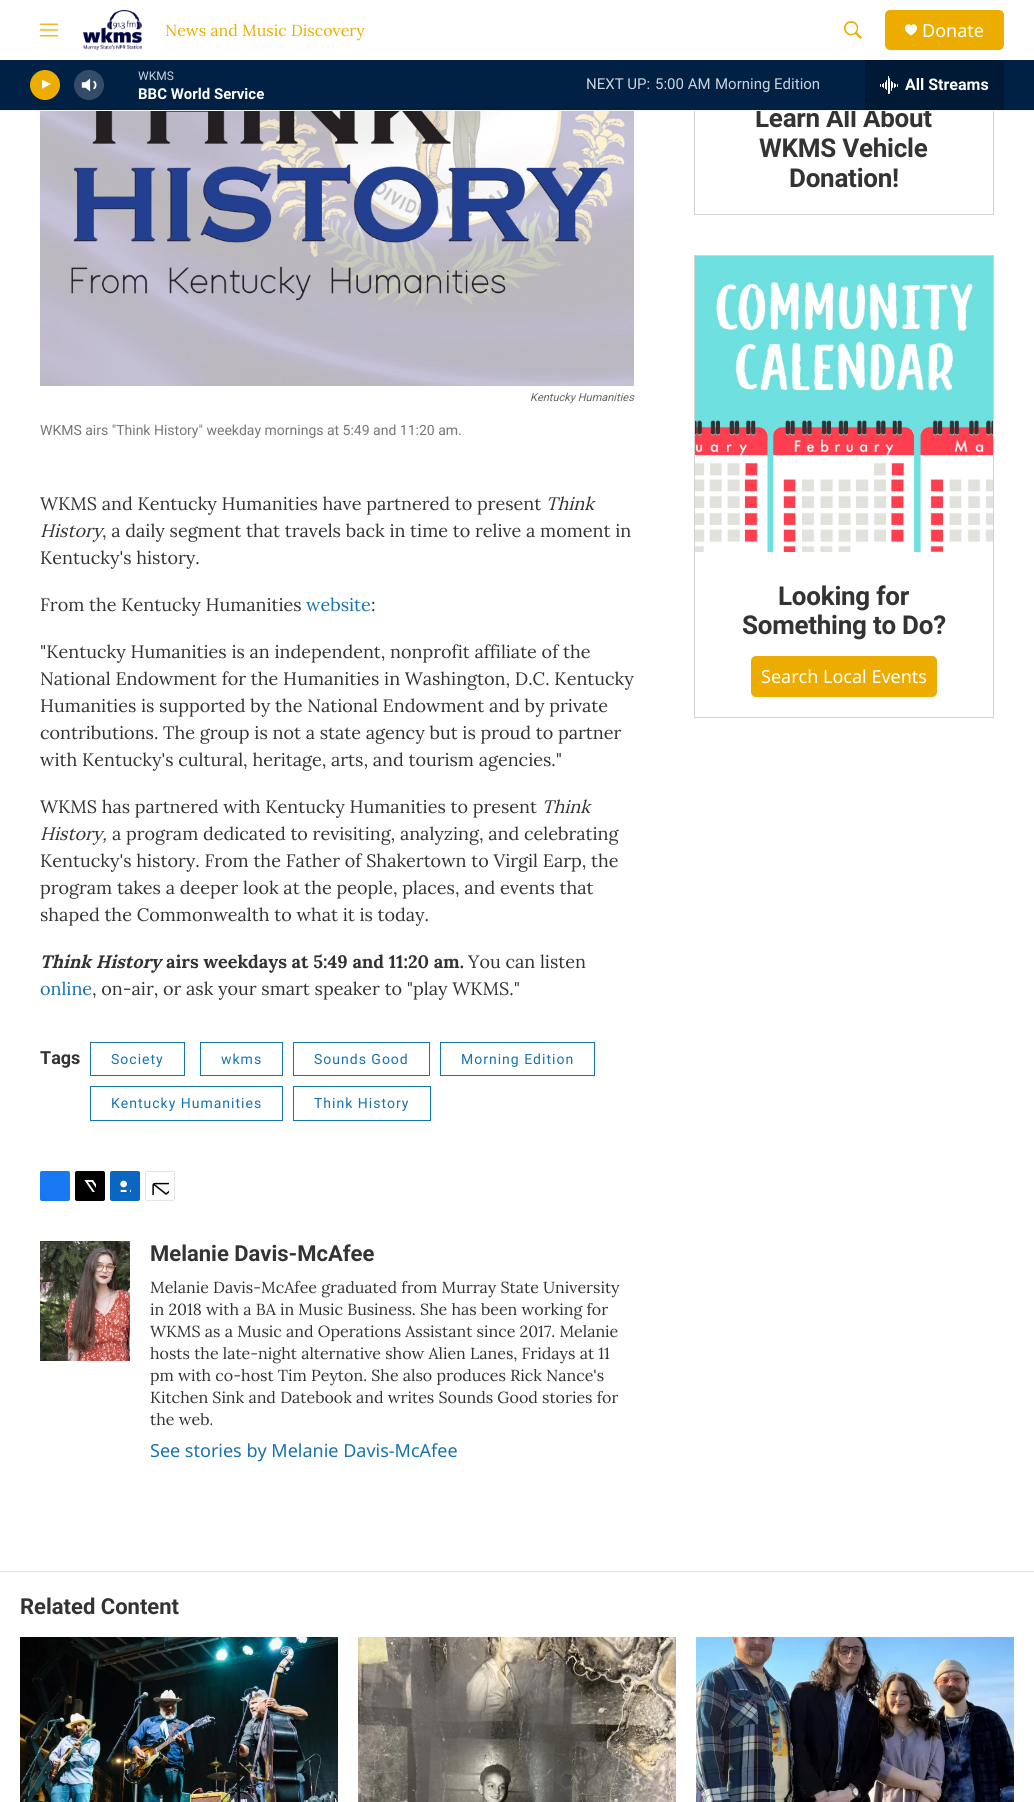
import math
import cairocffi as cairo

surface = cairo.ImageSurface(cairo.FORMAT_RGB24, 1034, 1802)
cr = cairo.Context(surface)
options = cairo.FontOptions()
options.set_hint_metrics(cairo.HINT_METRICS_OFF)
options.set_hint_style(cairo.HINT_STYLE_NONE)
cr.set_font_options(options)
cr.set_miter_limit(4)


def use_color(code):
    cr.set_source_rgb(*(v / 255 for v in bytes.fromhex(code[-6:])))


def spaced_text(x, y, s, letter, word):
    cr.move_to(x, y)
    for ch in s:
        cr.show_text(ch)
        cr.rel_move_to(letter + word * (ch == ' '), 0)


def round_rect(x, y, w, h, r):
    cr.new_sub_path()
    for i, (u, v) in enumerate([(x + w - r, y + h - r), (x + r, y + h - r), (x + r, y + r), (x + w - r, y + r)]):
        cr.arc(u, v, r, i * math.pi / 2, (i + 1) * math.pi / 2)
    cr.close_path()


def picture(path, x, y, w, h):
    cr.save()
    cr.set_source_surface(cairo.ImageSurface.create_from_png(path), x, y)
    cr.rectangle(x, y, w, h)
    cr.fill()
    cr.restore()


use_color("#ffffff")
cr.paint()
cr.rectangle(694.5, -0.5, 299, 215)
use_color("#d3d3d3")
cr.set_line_width(1)
cr.stroke()
use_color("#ffffff")
cr.rectangle(694, 0, 300, 60)
cr.fill()
cr.select_font_face("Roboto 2", cairo.FONT_SLANT_NORMAL, cairo.FONT_WEIGHT_BOLD)
cr.set_font_size(26)
use_color("#333333")
spaced_text(755, 127, "Learn All About", -0.25, 0)
use_color("#f5f5f5")
cr.rectangle(0, 110, 1034, 1)
cr.fill()
picture("img1.png", 40, 23, 18, 14)
picture("img2.png", 83, 10, 59, 40)
cr.select_font_face("Lora")
cr.set_font_size(16)
use_color("#ecad00")
cr.move_to(165, 36)
cr.show_text("News and Music Discovery")
picture("img3.png", 844, 21, 18, 18)
round_rect(885, 10, 119, 40, 5)
cr.fill()
use_color("#ffffff")
cr.new_path()
cr.move_to(911, 26)
cr.curve_to(909, 21, 898.5, 28, 911, 35.5)
cr.curve_to(923.5, 28, 913, 21, 911, 26)
cr.close_path()
cr.fill()
cr.select_font_face("Noto Sans")
cr.set_font_size(18)
cr.move_to(922, 37)
cr.show_text("Donate")
use_color("#002144")
cr.rectangle(0, 60, 1034, 50)
cr.fill()
use_color("#ecad00")
cr.arc(45, 85, 15, 0, 2 * math.pi)
cr.fill()
cr.save()
cr.rectangle(42, 78, 12, 15)
cr.clip()
use_color("#ffffff")
cr.new_path()
cr.move_to(41.5, 79.5)
cr.line_to(51, 84)
cr.line_to(41.5, 89)
cr.close_path()
cr.fill()
cr.restore()
picture("img4.png", 81, 78, 16, 14)
cr.set_source_rgba(1, 1, 1, 0.2)
cr.arc(89, 85, 15, 0, 2 * math.pi)
cr.fill()
cr.select_font_face("Roboto 2")
cr.set_font_size(12)
use_color("#ccd3da")
cr.move_to(138, 80)
cr.show_text("WKMS")
cr.select_font_face("Roboto 2", cairo.FONT_SLANT_NORMAL, cairo.FONT_WEIGHT_BOLD)
cr.set_font_size(15)
use_color("#ffffff")
cr.move_to(138, 99)
cr.show_text("BBC World Service")
cr.select_font_face("Roboto 2")
use_color("#ccd3da")
cr.move_to(586, 89)
cr.show_text("NEXT UP:")
cr.move_to(655, 89)
cr.show_text("5:00 AM")
cr.move_to(715, 89)
cr.show_text("Morning Edition")
use_color("#001a36")
cr.rectangle(865, 60, 139, 50)
cr.fill()
picture("img5.png", 880, 76, 18, 18)
cr.select_font_face("Roboto 2", cairo.FONT_SLANT_NORMAL, cairo.FONT_WEIGHT_BOLD)
cr.set_font_size(16)
use_color("#ffffff")
cr.move_to(905, 90)
cr.show_text("All Streams")
picture("img6.png", 40, 111, 594, 275)
cr.select_font_face("Roboto", cairo.FONT_SLANT_ITALIC)
cr.set_font_size(11)
use_color("#666666")
cr.move_to(530, 401)
cr.show_text("Kentucky Humanities")
cr.select_font_face("Roboto")
cr.set_font_size(14)
use_color("#767676")
cr.move_to(40, 435)
cr.show_text("WKMS airs \"Think History\" weekday mornings at 5:49 and 11:20 am.")
cr.select_font_face("Lora")
cr.set_font_size(18)
use_color("#333333")
cr.move_to(40, 510)
cr.show_text("WKMS and Kentucky Humanities have partnered to present")
cr.select_font_face("Lora", cairo.FONT_SLANT_ITALIC)
cr.move_to(546, 510)
cr.show_text("Think")
cr.move_to(40, 537)
cr.show_text("History")
cr.select_font_face("Lora")
cr.move_to(102, 537)
cr.show_text(", a daily segment that travels back in time to relive a moment in")
cr.move_to(40, 564)
cr.show_text("Kentucky's history.")
cr.move_to(40, 611)
cr.show_text("From the Kentucky Humanities")
use_color("#1772b0")
cr.move_to(306, 611)
cr.show_text("website")
use_color("#333333")
cr.move_to(371, 611)
cr.show_text(":")
cr.move_to(40, 658)
cr.show_text("\"Kentucky Humanities is an independent, nonprofit affiliate of the")
cr.move_to(40, 685)
cr.show_text("National Endowment for the Humanities in Washington, D.C. Kentucky")
cr.move_to(40, 712)
cr.show_text("Humanities is supported by the National Endowment and by private")
cr.move_to(40, 739)
cr.show_text("contributions. The group is not a state agency but is proud to partner")
cr.move_to(40, 766)
cr.show_text("with Kentucky's cultural, heritage, arts, and tourism agencies.\"")
cr.move_to(40, 813)
cr.show_text("WKMS has partnered with Kentucky Humanities to present")
cr.select_font_face("Lora", cairo.FONT_SLANT_ITALIC)
cr.move_to(542, 813)
cr.show_text("Think")
cr.move_to(40, 840)
cr.show_text("History,")
cr.select_font_face("Lora")
cr.move_to(112, 840)
cr.show_text("a program dedicated to revisiting, analyzing, and celebrating")
cr.move_to(40, 867)
cr.show_text("Kentucky's history. From the Father of Shakertown to Virgil Earp, the")
cr.move_to(40, 894)
cr.show_text("program takes a deeper look at the people, places, and events that")
cr.move_to(40, 921)
cr.show_text("shaped the Commonwealth to what it is today.")
cr.select_font_face("Lora", cairo.FONT_SLANT_ITALIC, cairo.FONT_WEIGHT_BOLD)
cr.move_to(40, 968)
cr.show_text("Think History")
cr.select_font_face("Lora", cairo.FONT_SLANT_NORMAL, cairo.FONT_WEIGHT_BOLD)
cr.move_to(166, 968)
cr.show_text("airs weekdays at 5:49 and 11:20 am.")
cr.select_font_face("Lora")
cr.move_to(468, 968)
cr.show_text("You can listen")
use_color("#1772b0")
cr.move_to(40, 995)
cr.show_text("online")
use_color("#333333")
cr.move_to(92, 995)
cr.show_text(", on-air, or ask your smart speaker to \"play WKMS.\"")
cr.select_font_face("Roboto", cairo.FONT_SLANT_NORMAL, cairo.FONT_WEIGHT_BOLD)
cr.move_to(40, 1064)
cr.show_text("Tags")
cr.rectangle(90.5, 1042.5, 94, 33)
use_color("#1772b0")
cr.stroke()
cr.select_font_face("Roboto 2")
cr.set_font_size(14)
spaced_text(111, 1064, "Society", 1, 0)
cr.rectangle(200.5, 1042.5, 82, 33)
cr.stroke()
spaced_text(221, 1064, "wkms", 1, 0)
cr.rectangle(293.5, 1042.5, 136, 33)
cr.stroke()
spaced_text(314, 1064, "Sounds Good", 1, 0)
cr.rectangle(440.5, 1042.5, 154, 33)
cr.stroke()
spaced_text(461, 1064, "Morning Edition", 1, 0)
cr.rectangle(90.5, 1086.5, 192, 34)
cr.stroke()
spaced_text(111, 1108, "Kentucky Humanities", 1, 0)
cr.rectangle(293.5, 1086.5, 137, 34)
cr.stroke()
spaced_text(314, 1108, "Think History", 1, 0)
use_color("#1778f2")
round_rect(40, 1171, 30, 30, 2)
cr.fill()
use_color("#000000")
round_rect(75, 1171, 30, 30, 2)
cr.fill()
picture("img7.png", 84, 1180, 12, 12)
use_color("#0a66c1")
round_rect(110, 1171, 30, 30, 2)
cr.fill()
picture("img8.png", 120, 1180, 11, 12)
round_rect(145.5, 1171.5, 29, 29, 1.5)
use_color("#e6e6e6")
cr.stroke()
picture("img9.png", 152, 1182, 17, 13)
picture("img10.png", 40, 1241, 90, 120)
cr.select_font_face("Roboto", cairo.FONT_SLANT_NORMAL, cairo.FONT_WEIGHT_BOLD)
cr.set_font_size(22)
use_color("#333333")
cr.move_to(150, 1261)
cr.show_text("Melanie Davis-McAfee")
cr.select_font_face("Lora")
cr.set_font_size(16)
cr.move_to(150, 1293)
cr.show_text("Melanie Davis-McAfee graduated from Murray State University")
cr.move_to(150, 1315)
cr.show_text("in 2018 with a BA in Music Business. She has been working for")
cr.move_to(150, 1337)
cr.show_text("WKMS as a Music and Operations Assistant since 2017. Melanie")
cr.move_to(150, 1359)
cr.show_text("hosts the late-night alternative show Alien Lanes, Fridays at 11")
cr.move_to(150, 1381)
cr.show_text("pm with co-host Tim Peyton. She also produces Rick Nance's")
cr.move_to(150, 1403)
cr.show_text("Kitchen Sink and Datebook and writes Sounds Good stories for")
cr.move_to(150, 1425)
cr.show_text("the web.")
cr.select_font_face("Noto Sans")
cr.set_font_size(18)
use_color("#1772b0")
cr.move_to(150, 1457)
cr.show_text("See stories by Melanie Davis-McAfee")
cr.select_font_face("Roboto 2", cairo.FONT_SLANT_NORMAL, cairo.FONT_WEIGHT_BOLD)
cr.set_font_size(26)
use_color("#333333")
spaced_text(759, 157, "WKMS Vehicle", -0.25, 0)
spaced_text(789, 187, "Donation!", -0.25, 0)
cr.rectangle(694.5, 255.5, 299, 462)
use_color("#d3d3d3")
cr.stroke()
picture("img11.png", 695, 256, 298, 296)
use_color("#333333")
spaced_text(778, 605, "Looking for", -0.25, 0)
spaced_text(742, 634, "Something to Do?", -0.25, 0)
use_color("#ecad00")
round_rect(751, 656, 186, 41, 5)
cr.fill()
cr.select_font_face("Noto Sans")
cr.set_font_size(18)
use_color("#ffffff")
cr.move_to(761, 683)
cr.show_text("Search Local Events")
use_color("#e6e6e6")
cr.rectangle(0, 1571, 1034, 1)
cr.fill()
cr.select_font_face("Roboto", cairo.FONT_SLANT_NORMAL, cairo.FONT_WEIGHT_BOLD)
cr.set_font_size(22)
use_color("#333333")
cr.move_to(20, 1614)
cr.show_text("Related Content")
picture("img12.png", 20, 1637, 318, 165)
picture("img13.png", 358, 1637, 318, 165)
picture("img14.png", 696, 1637, 318, 165)
surface.write_to_png("result.png")
